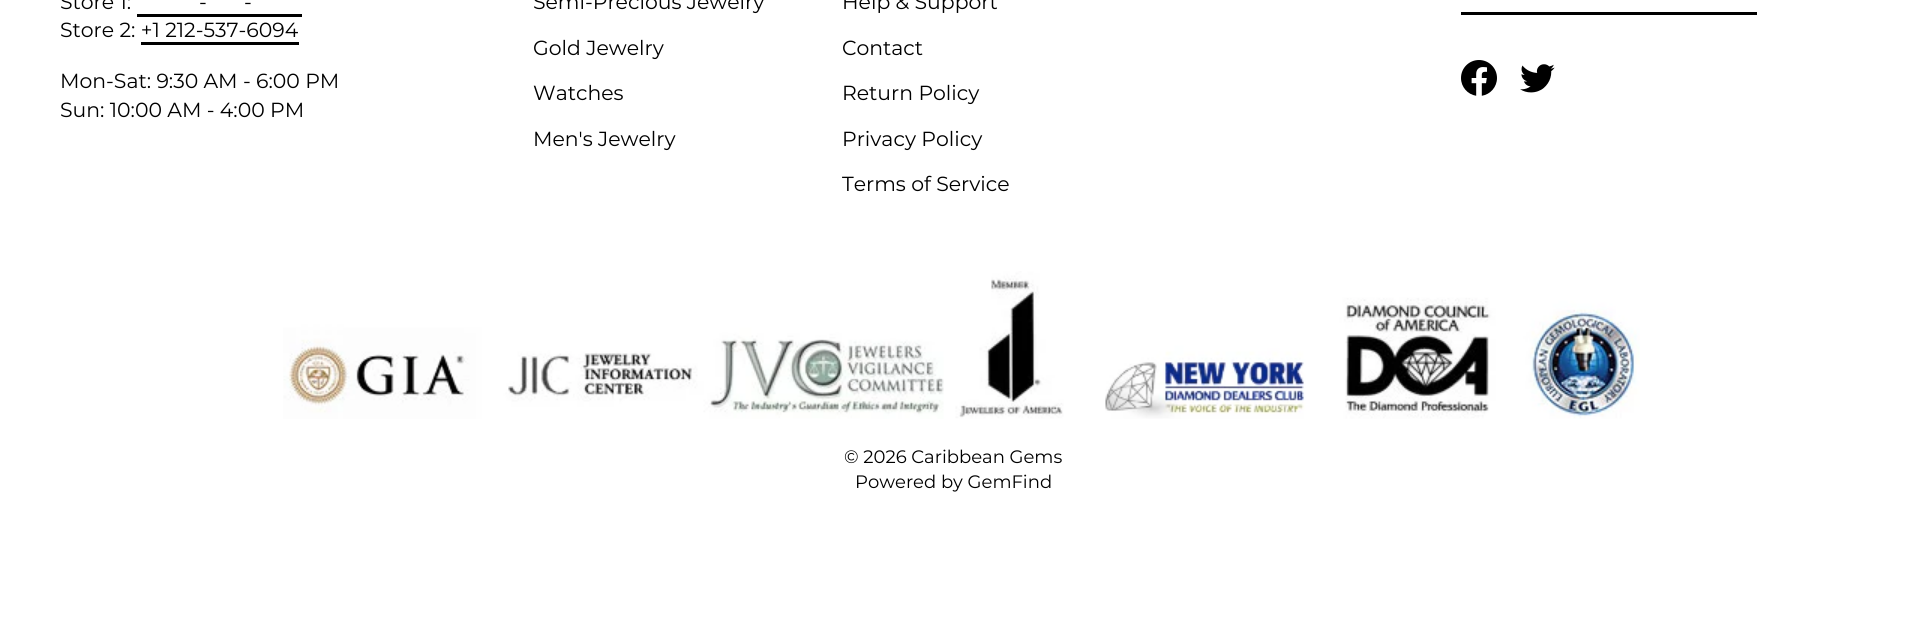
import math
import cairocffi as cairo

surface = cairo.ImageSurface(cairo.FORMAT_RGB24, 1906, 617)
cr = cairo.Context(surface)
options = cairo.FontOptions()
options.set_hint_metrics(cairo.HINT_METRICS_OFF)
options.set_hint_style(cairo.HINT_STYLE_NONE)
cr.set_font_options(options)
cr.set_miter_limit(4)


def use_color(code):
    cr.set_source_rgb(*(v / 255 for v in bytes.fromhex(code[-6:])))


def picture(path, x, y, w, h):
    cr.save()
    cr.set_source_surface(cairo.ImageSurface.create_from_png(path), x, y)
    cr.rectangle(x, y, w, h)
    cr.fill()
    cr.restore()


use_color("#ffffff")
cr.paint()
cr.select_font_face("Montserrat")
cr.set_font_size(20.4)
use_color("#000000")
cr.move_to(60, 9)
cr.show_text("Store 1:")
cr.move_to(199, 9)
cr.show_text("-")
cr.rectangle(137, 14, 165, 3)
cr.fill()
cr.move_to(244, 9)
cr.show_text("-")
cr.move_to(60, 37)
cr.show_text("Store 2: +1 212-537-6094")
cr.rectangle(141, 42, 158, 3)
cr.fill()
cr.move_to(60, 88)
cr.show_text("Mon-Sat: 9:30 AM - 6:00 PM")
cr.move_to(60, 117)
cr.show_text("Sun: 10:00 AM - 4:00 PM")
cr.move_to(533, 9)
cr.show_text("Semi-Precious Jewelry")
cr.move_to(533, 55)
cr.show_text("Gold Jewelry")
cr.move_to(533, 100)
cr.show_text("Watches")
cr.move_to(533, 146)
cr.show_text("Men's Jewelry")
cr.move_to(842, 9)
cr.show_text("Help & Support")
cr.move_to(842, 55)
cr.show_text("Contact")
cr.move_to(842, 100)
cr.show_text("Return Policy")
cr.move_to(842, 146)
cr.show_text("Privacy Policy")
cr.move_to(842, 191)
cr.show_text("Terms of Service")
cr.rectangle(1461, 12, 296, 3)
cr.fill()
picture("img1.png", 1461, 60, 36, 36)
picture("img2.png", 1520, 64, 35, 29)
picture("img3.png", 283, 271, 1357, 148)
cr.set_font_size(18)
cr.move_to(844, 463)
cr.show_text("© 2026 Caribbean Gems")
cr.move_to(855, 488)
cr.show_text("Powered by GemFind")
surface.write_to_png("result.png")
